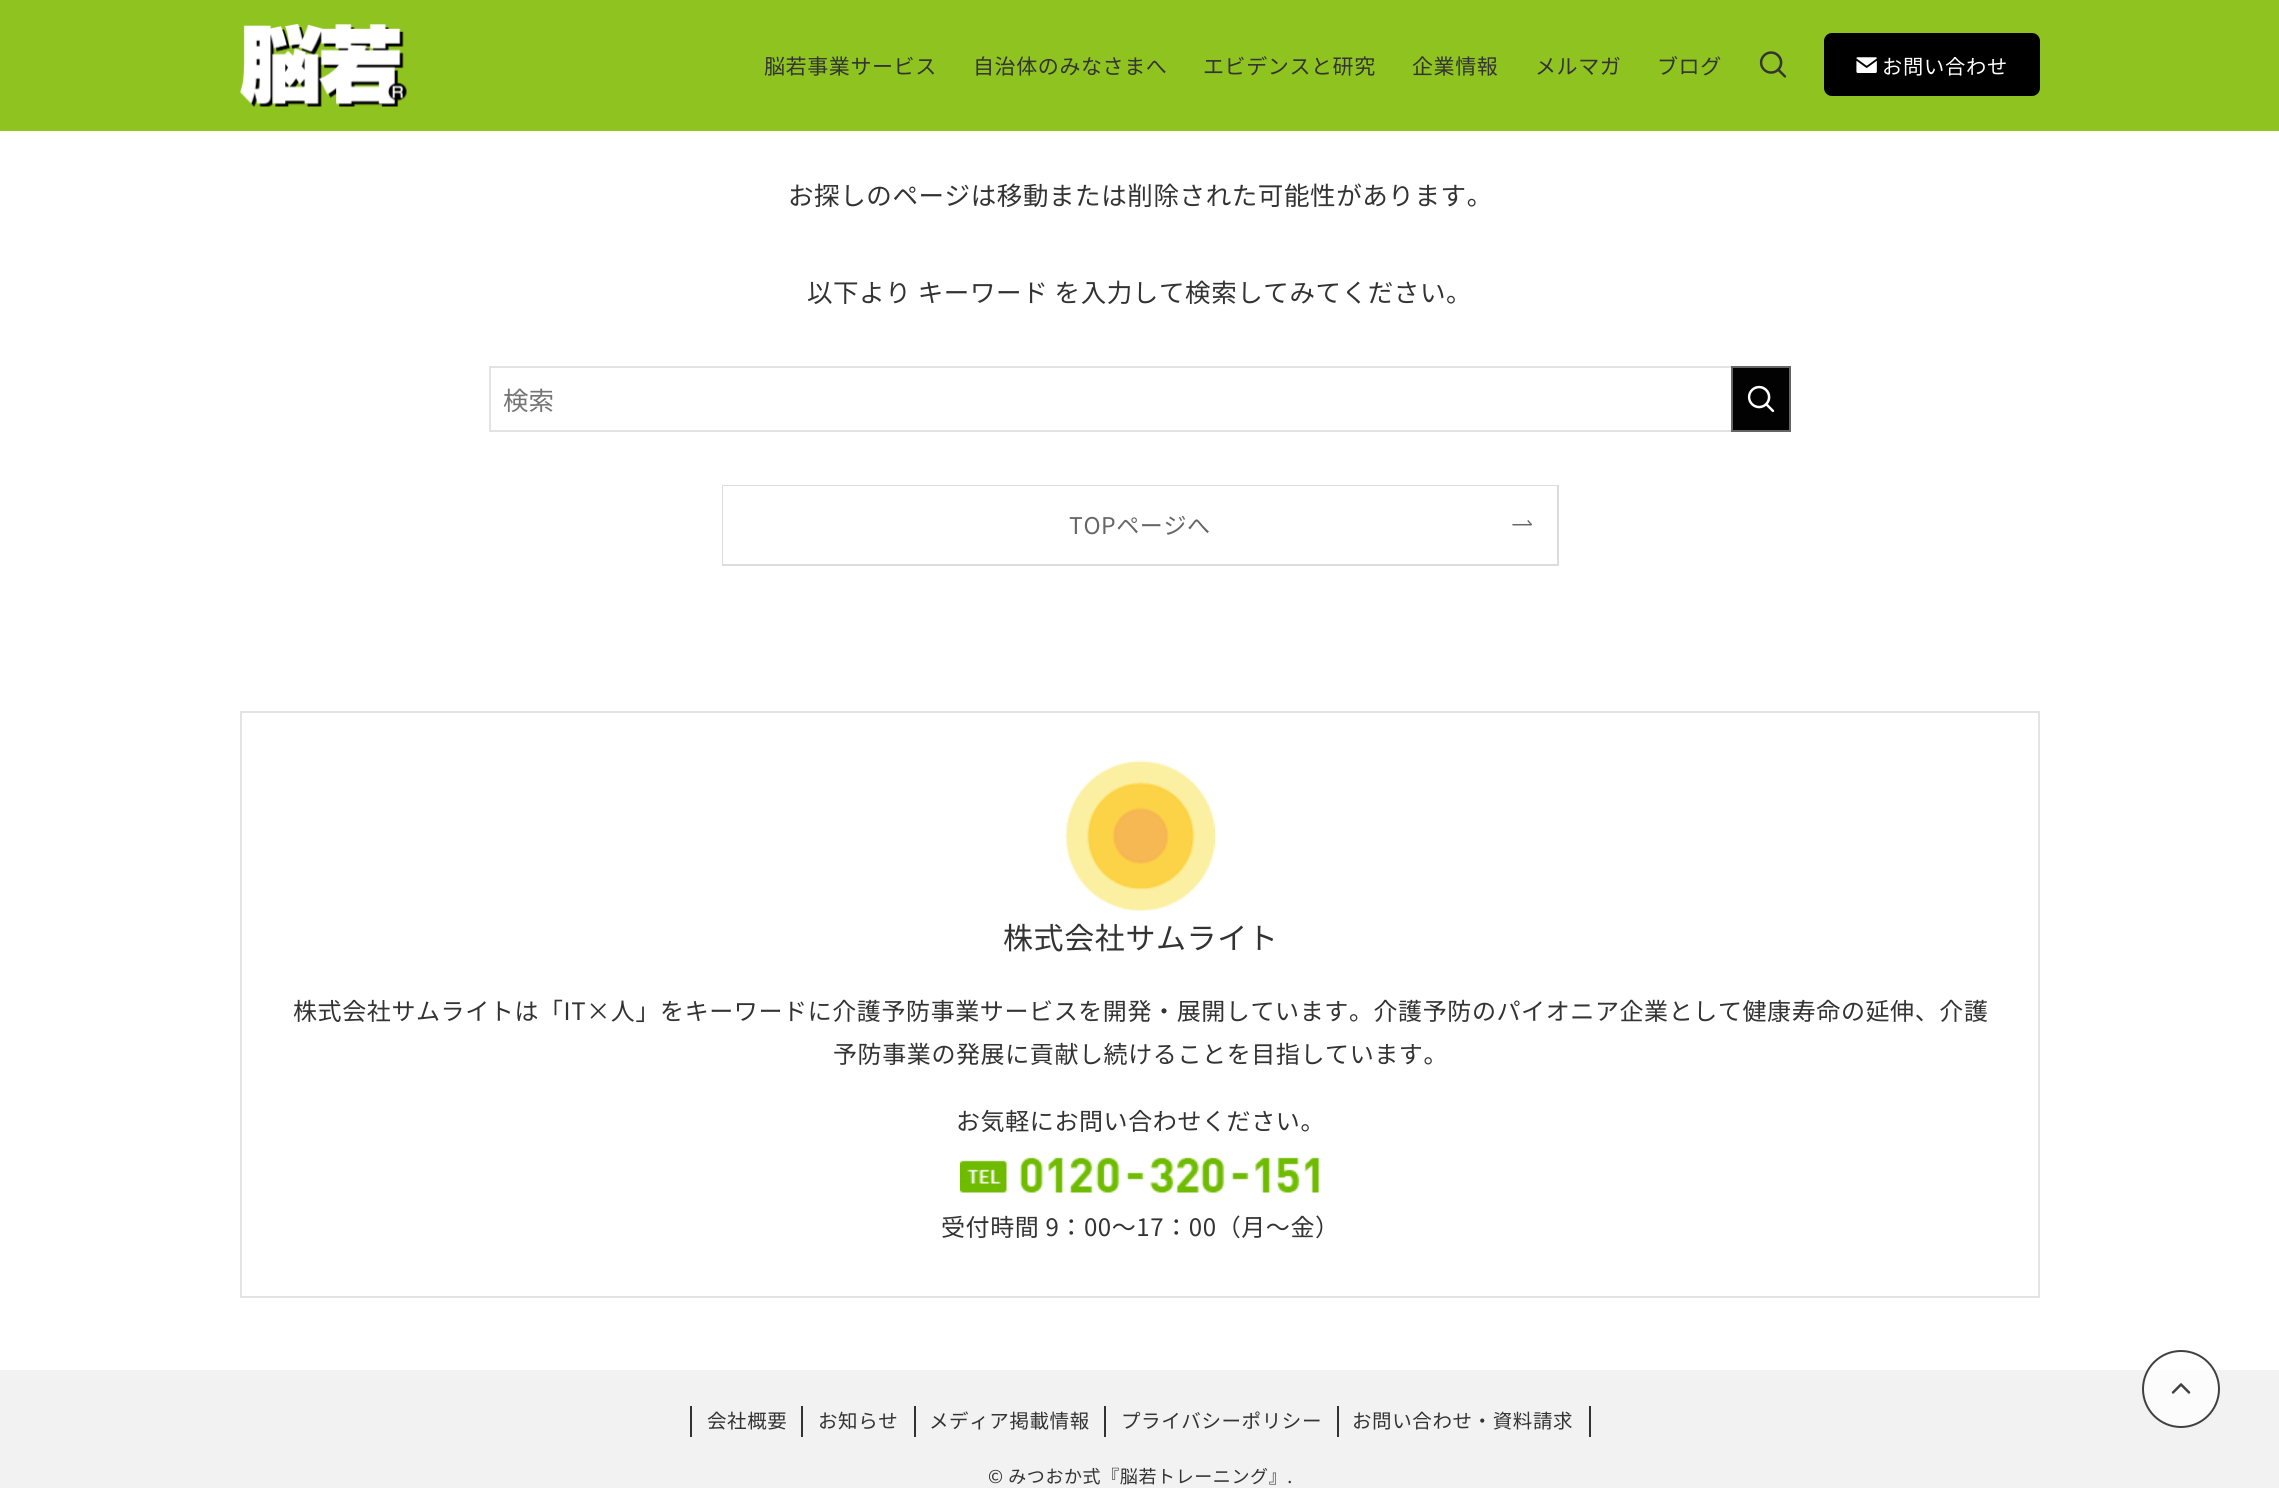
import math
import cairocffi as cairo

surface = cairo.ImageSurface(cairo.FORMAT_RGB24, 2279, 1488)
cr = cairo.Context(surface)
options = cairo.FontOptions()
options.set_hint_metrics(cairo.HINT_METRICS_OFF)
options.set_hint_style(cairo.HINT_STYLE_NONE)
cr.set_font_options(options)
cr.set_miter_limit(4)


def use_color(code):
    cr.set_source_rgb(*(v / 255 for v in bytes.fromhex(code[-6:])))


def spaced_text(x, y, s, letter, word):
    cr.move_to(x, y)
    for ch in s:
        cr.show_text(ch)
        cr.rel_move_to(letter + word * (ch == ' '), 0)


def round_rect(x, y, w, h, r):
    cr.new_sub_path()
    for i, (u, v) in enumerate([(x + w - r, y + h - r), (x + r, y + h - r), (x + r, y + r), (x + w - r, y + r)]):
        cr.arc(u, v, r, i * math.pi / 2, (i + 1) * math.pi / 2)
    cr.close_path()


def picture(path, x, y, w, h):
    cr.save()
    cr.set_source_surface(cairo.ImageSurface.create_from_png(path), x, y)
    cr.rectangle(x, y, w, h)
    cr.fill()
    cr.restore()


use_color("#ffffff")
cr.paint()
use_color("#8fc31f")
cr.rectangle(0, 0, 2279, 131)
cr.fill()
picture("img1.png", 240, 24, 167, 83)
cr.select_font_face("Noto Sans JP")
cr.set_font_size(21)
use_color("#333333")
spaced_text(764, 74, "脳若事業サービス", 0.6, 0)
spaced_text(973, 74, "自治体のみなさまへ", 0.6, 0)
spaced_text(1203, 74, "エビデンスと研究", 0.6, 0)
spaced_text(1412, 74, "企業情報", 0.6, 0)
spaced_text(1535, 74, "メルマガ", 0.6, 0)
spaced_text(1657, 74, "ブログ", 0.6, 0)
picture("img2.png", 1759, 51, 28, 27)
use_color("#000000")
round_rect(1824, 33, 216, 63, 8)
cr.fill()
picture("img3.png", 1856, 57, 21, 16)
cr.set_font_size(20.25)
use_color("#ffffff")
spaced_text(1882, 74, "お問い合わせ", 0.75, 0)
cr.set_font_size(25.5)
use_color("#333333")
spaced_text(788, 205, "お探しのページは移動または削除された可能性があります。", 0.6, 0)
spaced_text(807, 302, "以下より キーワード を入力して検索してみてください。", 0.6, 0)
cr.rectangle(490, 367, 1300, 64)
use_color("#e3e3e3")
cr.stroke()
use_color("#757575")
cr.move_to(503, 410)
cr.show_text("検索")
use_color("#020202")
cr.rectangle(1732, 367, 58, 64)
cr.fill_preserve()
use_color("#656565")
cr.stroke()
picture("img4.png", 1747, 385, 28, 28)
cr.rectangle(723, 486, 835, 79)
use_color("#dcdcdc")
cr.stroke()
use_color("#ffffff")
cr.rectangle(723, 486, 834, 78)
cr.fill()
cr.set_font_size(23)
use_color("#666666")
spaced_text(1069, 534, "TOPページへ", 0.6, 0)
picture("img5.png", 1512, 520, 20, 6)
cr.rectangle(241, 712, 1798, 585)
use_color("#e3e3e3")
cr.stroke()
picture("img6.png", 1065, 760, 150, 151)
cr.set_font_size(30)
use_color("#333333")
spaced_text(1003, 949, "株式会社サムライト", 0.6, 0)
cr.set_font_size(24)
spaced_text(293, 1020, "株式会社サムライトは「IT×人」をキーワードに介護予防事業サービスを開発・展開しています。介護予防のパイオニア企業として健康寿命の延伸、介護", 0.6, 0)
spaced_text(833, 1063, "予防事業の発展に貢献し続けることを目指しています。", 0.6, 0)
spaced_text(956, 1130, "お気軽にお問い合わせください。", 0.6, 0)
picture("img7.png", 960, 1157, 360, 36)
spaced_text(941, 1236, "受付時間 9：00～17：00（月〜金）", 0.6, 0)
use_color("#f2f2f2")
cr.rectangle(0, 1370, 2279, 118)
cr.fill()
cr.set_source_rgba(1, 1, 1, 0.75)
cr.arc(2181, 1389, 39, 0, 2 * math.pi)
cr.fill()
cr.arc(2181, 1389, 38, 0, 2 * math.pi)
cr.set_source_rgba(0.008, 0.008, 0.008, 0.75)
cr.stroke()
picture("img8.png", 2171, 1383, 20, 11)
use_color("#333333")
cr.rectangle(801, 1406, 2, 31)
cr.fill()
cr.rectangle(690, 1406, 2, 31)
cr.fill()
cr.set_font_size(19.5)
spaced_text(707, 1428, "会社概要", 0.6, 0)
cr.rectangle(914, 1406, 2, 31)
cr.fill()
spaced_text(818, 1428, "お知らせ", 0.6, 0)
cr.rectangle(1104, 1406, 2, 31)
cr.fill()
spaced_text(929, 1428, "メディア掲載情報", 0.6, 0)
cr.rectangle(1337, 1406, 2, 31)
cr.fill()
spaced_text(1121, 1428, "プライバシーポリシー", 0.6, 0)
cr.rectangle(1589, 1406, 2, 31)
cr.fill()
spaced_text(1352, 1428, "お問い合わせ・資料請求", 0.6, 0)
cr.set_font_size(18)
spaced_text(988, 1483, "© みつおか式『脳若トレーニング』.", 0.6, 0)
surface.write_to_png("result.png")
